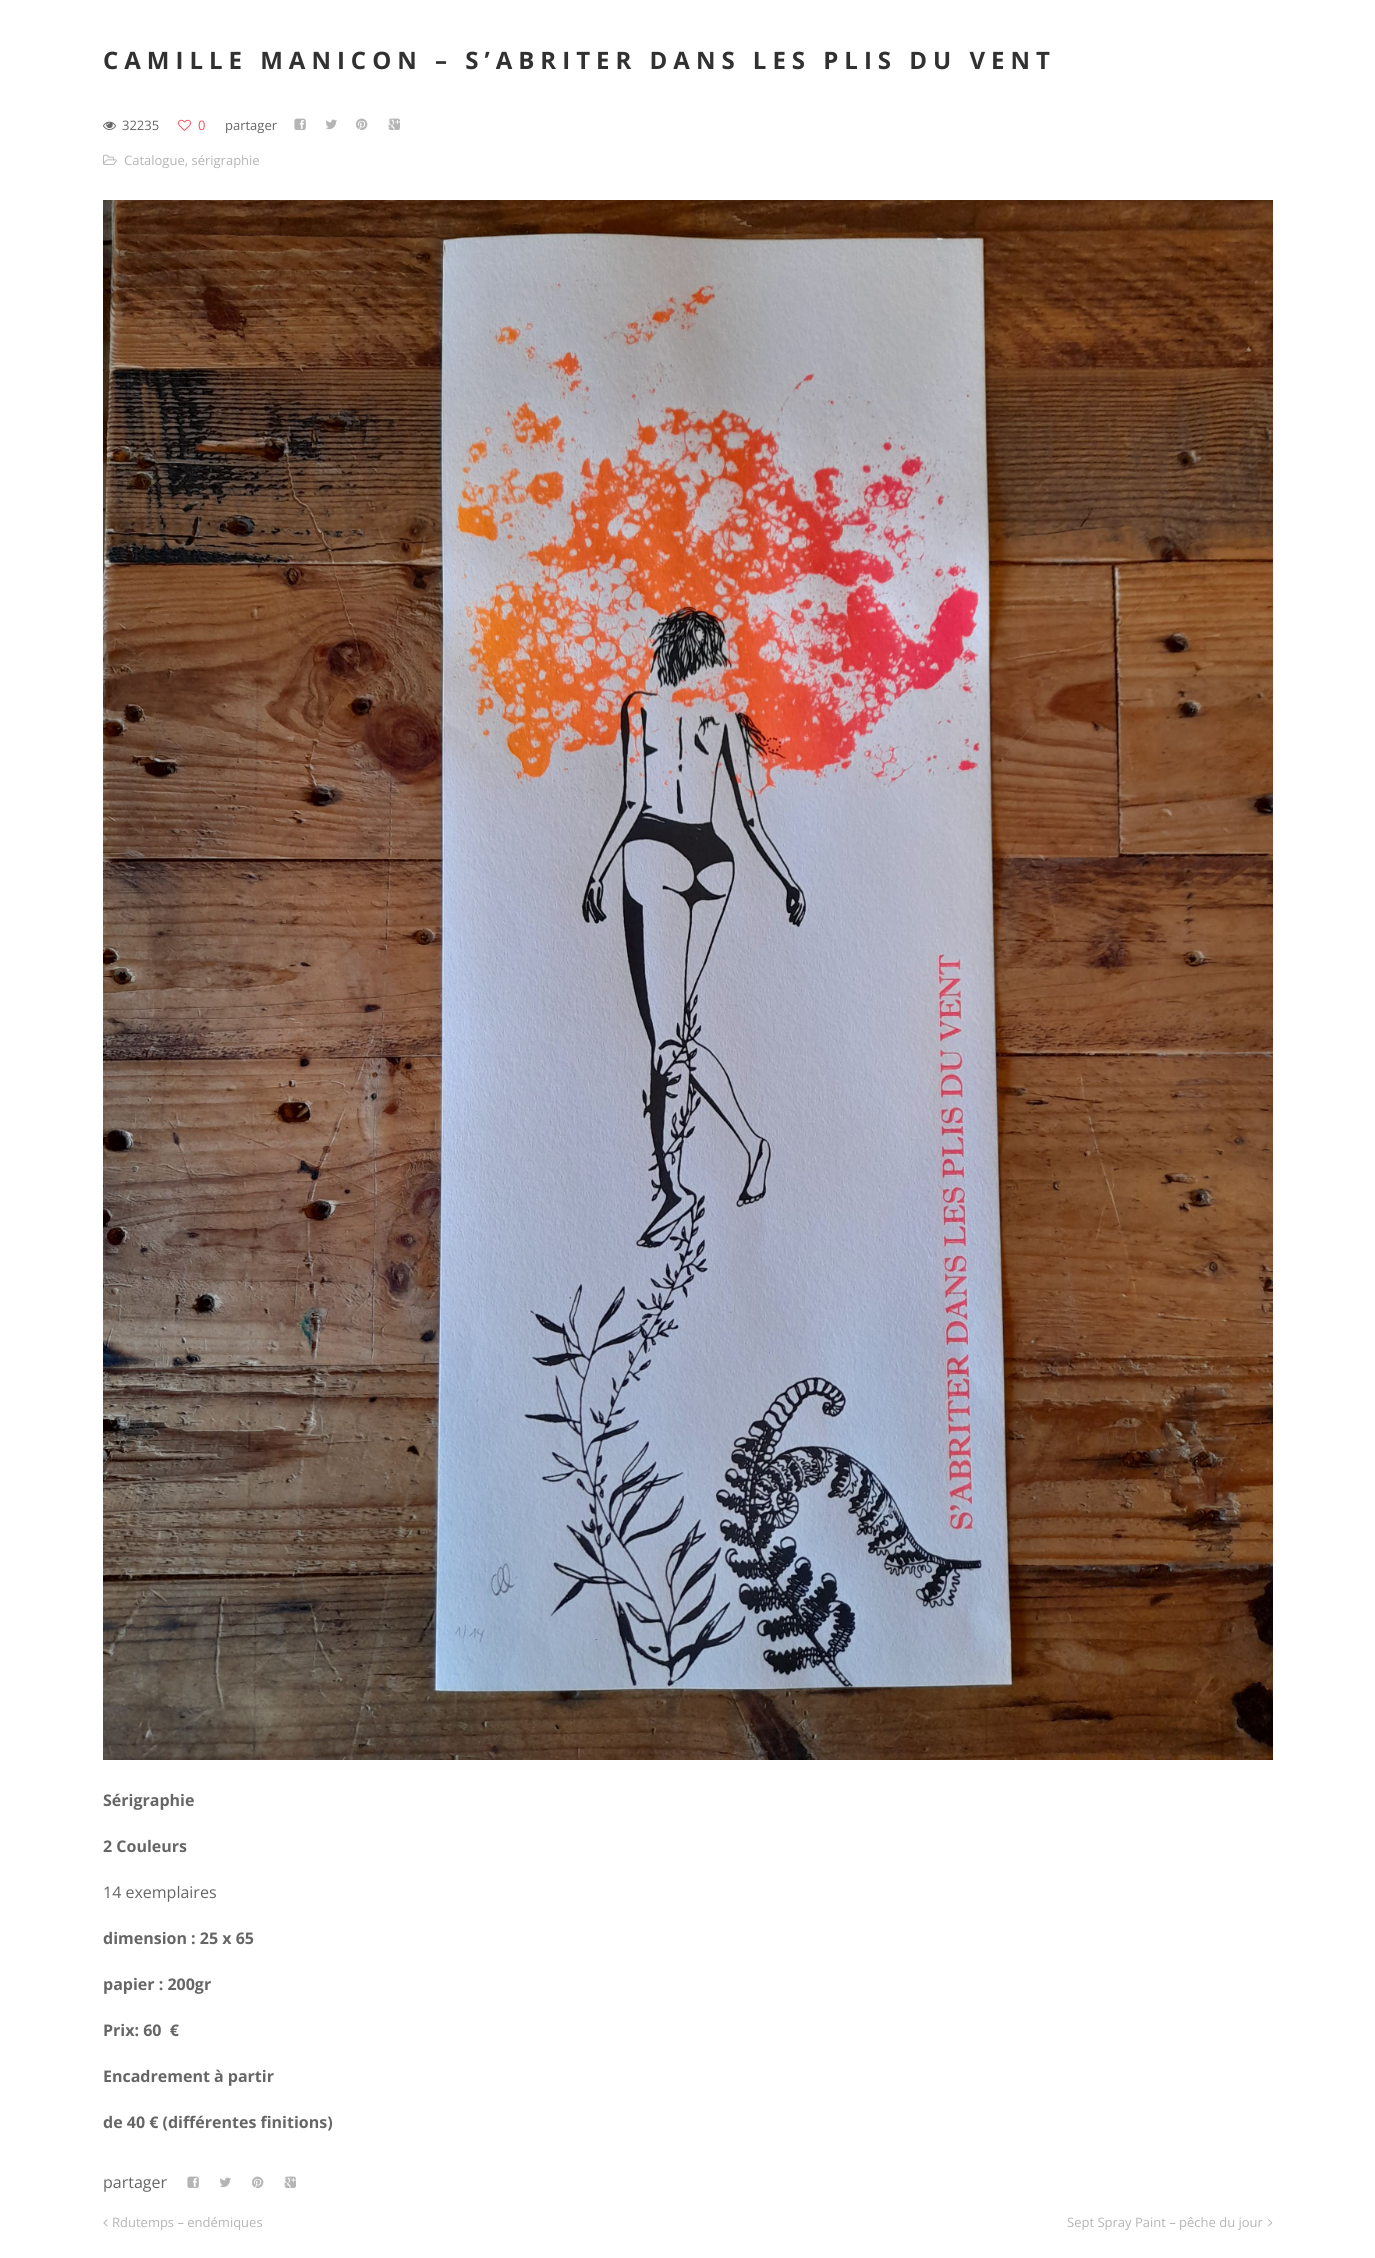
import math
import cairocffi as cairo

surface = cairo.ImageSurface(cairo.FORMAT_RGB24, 1375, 2258)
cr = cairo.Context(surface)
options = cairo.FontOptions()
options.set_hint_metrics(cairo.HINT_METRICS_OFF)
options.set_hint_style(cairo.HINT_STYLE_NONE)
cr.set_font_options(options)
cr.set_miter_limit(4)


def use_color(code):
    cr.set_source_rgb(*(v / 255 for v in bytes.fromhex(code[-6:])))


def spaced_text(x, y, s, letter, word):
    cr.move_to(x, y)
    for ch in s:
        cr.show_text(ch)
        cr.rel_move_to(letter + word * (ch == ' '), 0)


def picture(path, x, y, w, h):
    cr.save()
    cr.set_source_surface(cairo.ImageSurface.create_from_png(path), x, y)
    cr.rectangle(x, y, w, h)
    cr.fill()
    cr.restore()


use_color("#ffffff")
cr.paint()
cr.select_font_face("Open Sans", cairo.FONT_SLANT_NORMAL, cairo.FONT_WEIGHT_BOLD)
cr.set_font_size(24)
use_color("#313131")
spaced_text(103, 69, "CAMILLE MANICON – S’ABRITER DANS LES PLIS DU VENT", 6, 0)
picture("img1.png", 103, 121, 13, 9)
cr.select_font_face("Open Sans")
cr.set_font_size(13)
use_color("#666666")
cr.move_to(122, 130)
cr.show_text("32235")
picture("img2.png", 178, 119, 13, 12)
use_color("#f75058")
cr.move_to(198, 130)
cr.show_text("0")
use_color("#666666")
cr.move_to(225, 130)
cr.show_text("partager")
picture("img3.png", 294, 118, 12, 12)
picture("img4.png", 326, 119, 11, 11)
picture("img5.png", 356, 118, 12, 12)
picture("img6.png", 388, 118, 12, 12)
picture("img7.png", 103, 154, 14, 11)
use_color("#b5b5b5")
cr.move_to(124, 165)
cr.show_text("Catalogue, sérigraphie")
picture("img8.png", 103, 200, 1170, 1560)
cr.select_font_face("Open Sans", cairo.FONT_SLANT_NORMAL, cairo.FONT_WEIGHT_BOLD)
cr.set_font_size(16)
use_color("#666666")
cr.move_to(103, 1806)
cr.show_text("Sérigraphie")
cr.move_to(103, 1852)
cr.show_text("2 Couleurs")
cr.select_font_face("Open Sans")
cr.move_to(103, 1898)
cr.show_text("14 exemplaires")
cr.select_font_face("Open Sans", cairo.FONT_SLANT_NORMAL, cairo.FONT_WEIGHT_BOLD)
cr.move_to(103, 1944)
cr.show_text("dimension : 25 x 65")
cr.move_to(103, 1990)
cr.show_text("papier : 200gr")
cr.move_to(103, 2036)
cr.show_text("Prix: 60  €")
cr.move_to(103, 2082)
cr.show_text("Encadrement à partir")
cr.move_to(103, 2128)
cr.show_text("de 40 € (différentes finitions)")
cr.select_font_face("Open Sans")
cr.move_to(103, 2188)
cr.show_text("partager")
picture("img3.png", 187, 2176, 12, 12)
picture("img4.png", 220, 2177, 11, 11)
picture("img5.png", 252, 2176, 12, 12)
picture("img6.png", 284, 2176, 12, 12)
picture("img9.png", 103, 2219, 5, 8)
cr.set_font_size(13)
use_color("#b5b5b5")
cr.move_to(112, 2227)
cr.show_text("Rdutemps – endémiques")
cr.move_to(1067, 2227)
cr.show_text("Sept Spray Paint – pêche du jour")
picture("img10.png", 1268, 2219, 5, 8)
surface.write_to_png("result.png")
